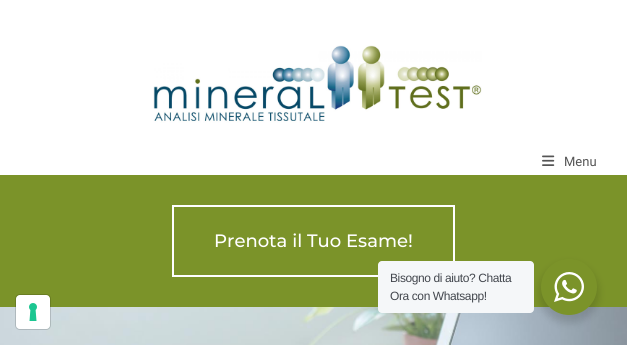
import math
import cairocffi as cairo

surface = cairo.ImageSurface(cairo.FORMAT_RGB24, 627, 345)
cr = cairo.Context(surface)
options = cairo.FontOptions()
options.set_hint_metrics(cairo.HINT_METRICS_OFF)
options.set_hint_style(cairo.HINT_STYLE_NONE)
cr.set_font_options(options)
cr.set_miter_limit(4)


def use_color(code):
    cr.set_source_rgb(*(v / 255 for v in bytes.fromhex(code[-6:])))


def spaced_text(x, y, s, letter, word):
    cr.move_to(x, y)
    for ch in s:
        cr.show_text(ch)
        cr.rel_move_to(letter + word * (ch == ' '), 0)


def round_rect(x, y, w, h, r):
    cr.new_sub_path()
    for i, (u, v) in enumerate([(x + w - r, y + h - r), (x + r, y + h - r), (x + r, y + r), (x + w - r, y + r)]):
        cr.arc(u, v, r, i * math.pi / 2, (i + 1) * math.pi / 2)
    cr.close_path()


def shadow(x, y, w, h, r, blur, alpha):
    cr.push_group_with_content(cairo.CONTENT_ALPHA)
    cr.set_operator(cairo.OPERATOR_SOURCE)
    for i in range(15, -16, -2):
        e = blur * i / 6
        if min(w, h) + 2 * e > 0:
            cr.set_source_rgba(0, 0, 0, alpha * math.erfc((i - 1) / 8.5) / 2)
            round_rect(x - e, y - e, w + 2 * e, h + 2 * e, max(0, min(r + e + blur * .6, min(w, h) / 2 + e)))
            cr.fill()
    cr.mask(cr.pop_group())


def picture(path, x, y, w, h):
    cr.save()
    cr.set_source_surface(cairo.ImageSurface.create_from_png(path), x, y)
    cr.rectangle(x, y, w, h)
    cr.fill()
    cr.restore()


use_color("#ffffff")
cr.paint()
picture("img1.png", 153, 45, 329, 78)
picture("img2.png", 542, 155, 13, 11)
cr.select_font_face("Roboto")
cr.set_font_size(13)
use_color("#555555")
cr.move_to(564, 166)
cr.show_text("Menu")
use_color("#7b9329")
cr.rectangle(0, 175, 627, 132)
cr.fill()
cr.rectangle(173, 206, 281, 70)
use_color("#ffffff")
cr.stroke()
cr.select_font_face("Montserrat Medium")
cr.set_font_size(18)
cr.move_to(214, 247)
cr.show_text("Prenota il Tuo Esame!")
picture("img3.png", 0, 307, 627, 38)
use_color("#000000")
shadow(539, 263, 60, 60, 30, 4, 0.14)
use_color("#f5f7f9")
round_rect(378, 261, 156, 52, 4)
cr.fill()
cr.select_font_face("Liberation Sans")
cr.set_font_size(12)
use_color("#43474e")
spaced_text(390, 282, "Bisogno di aiuto? Chatta", -0.4, 0)
spaced_text(390, 300, "Ora con Whatsapp!", -0.4, 0)
use_color("#7b9329")
cr.new_path()
cr.arc(569, 287, 28, 0, 2 * math.pi)
cr.fill()
picture("img4.png", 554, 272, 30, 30)
round_rect(15.5, 294.5, 35, 35, 4.5)
cr.set_source_rgba(0, 0, 0, 0.15)
cr.set_line_width(1)
cr.stroke()
use_color("#ffffff")
round_rect(16, 295, 34, 34, 4)
cr.fill()
picture("img5.png", 29, 303, 8, 18)
surface.write_to_png("result.png")
